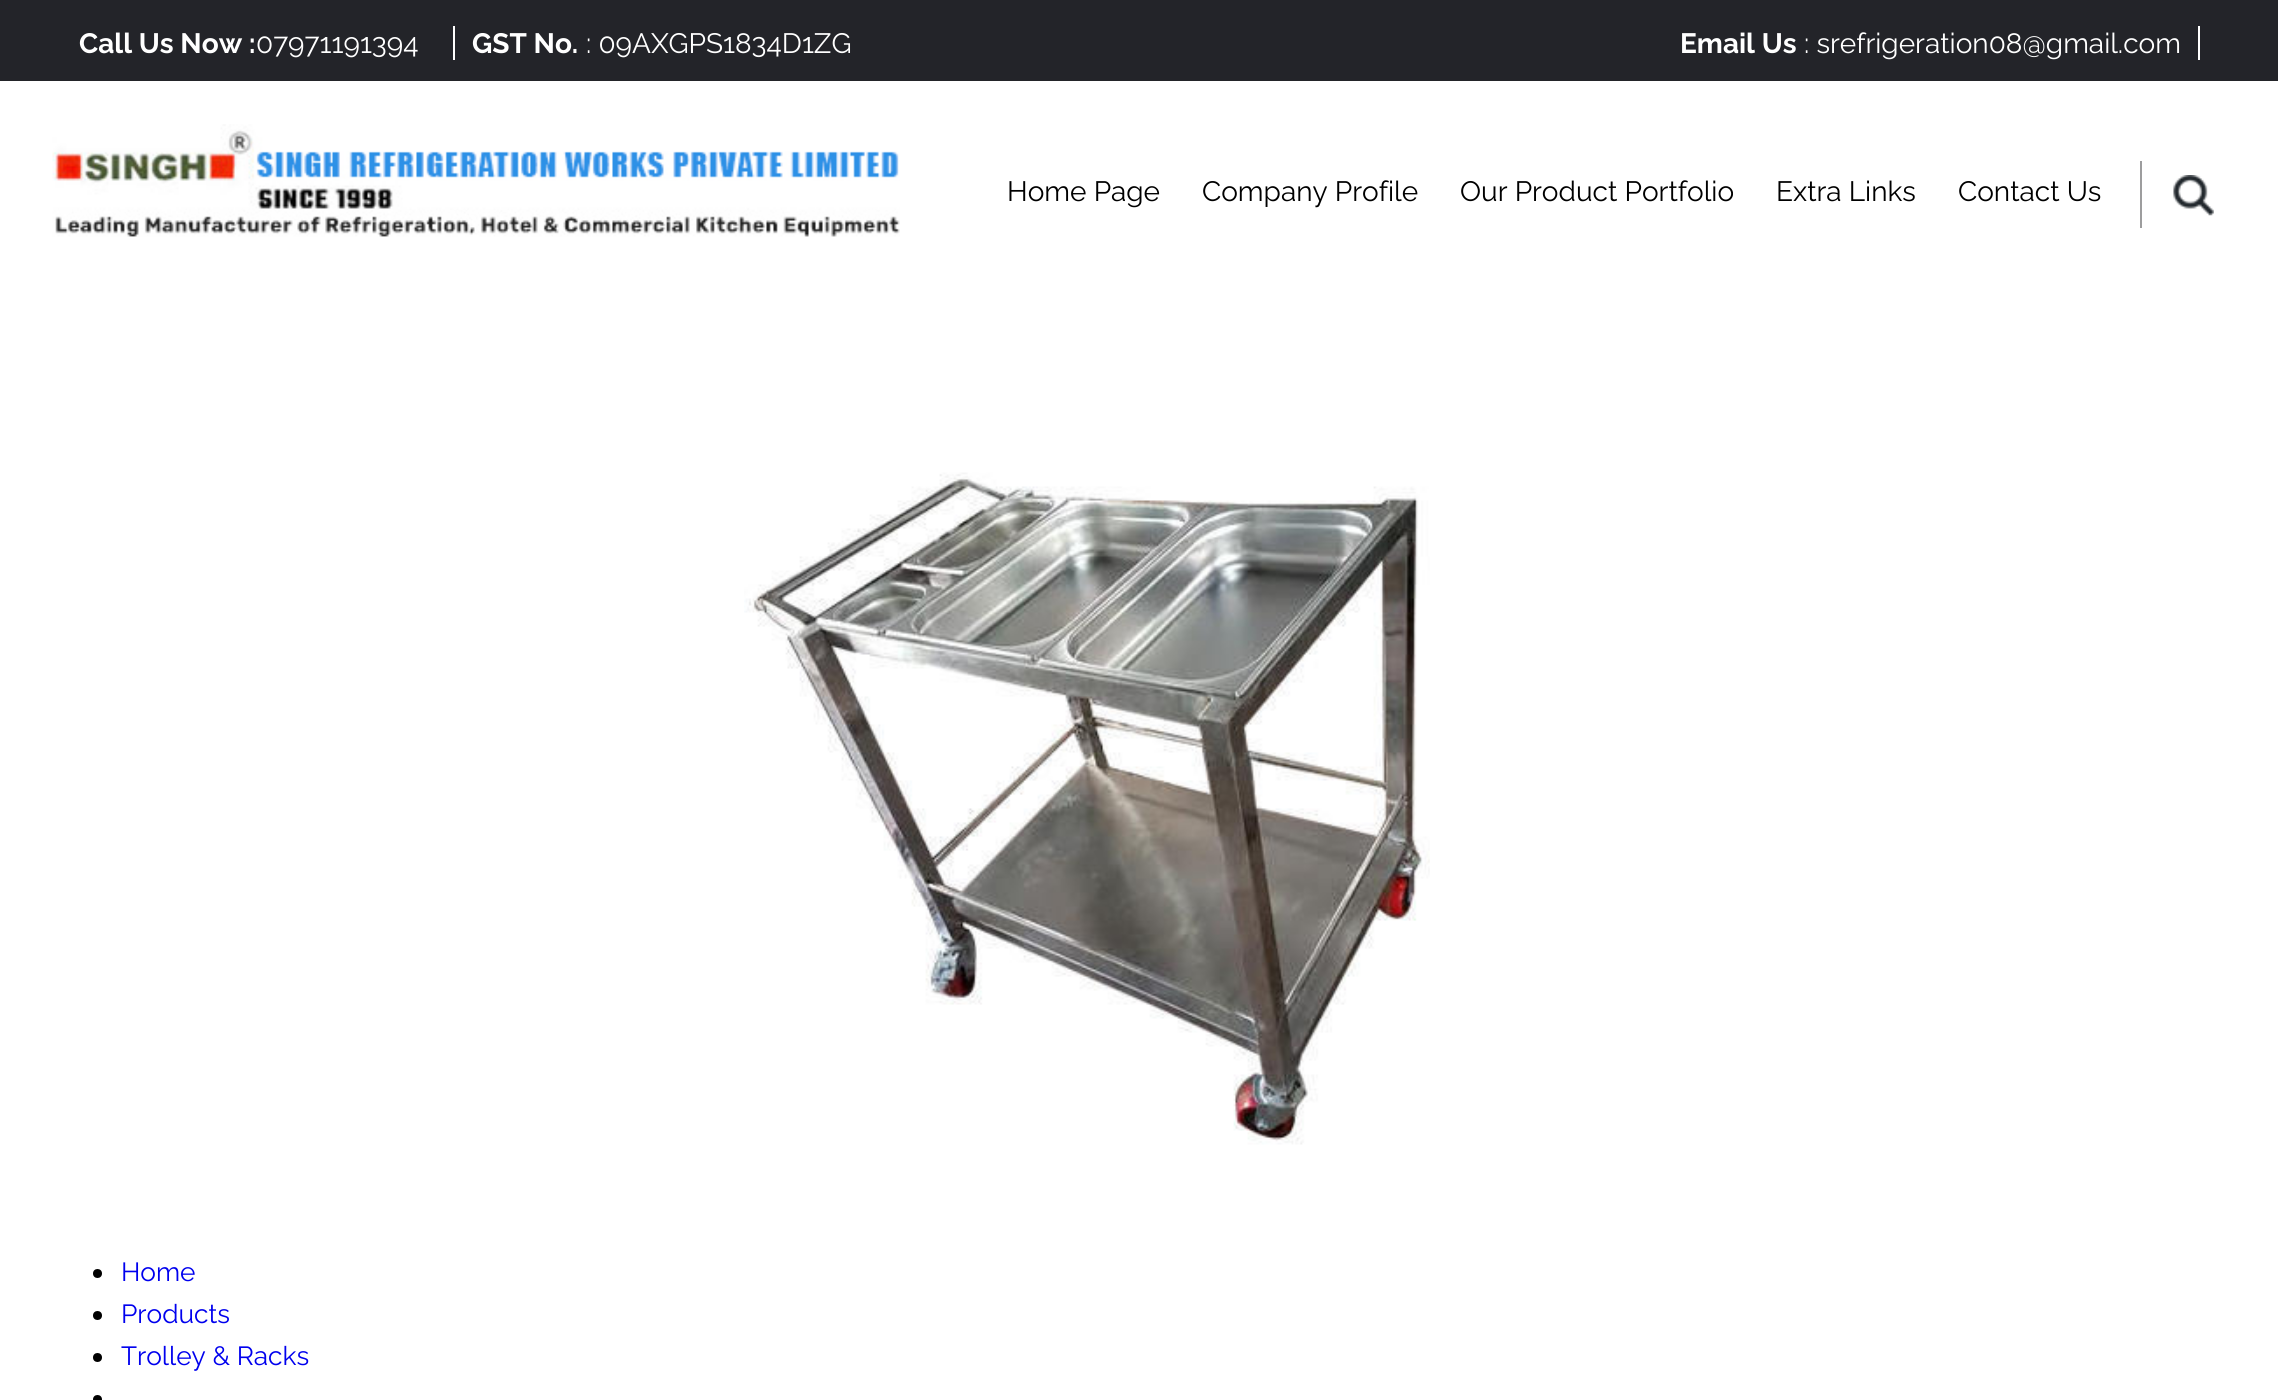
import math
import cairocffi as cairo

surface = cairo.ImageSurface(cairo.FORMAT_RGB24, 2278, 1400)
cr = cairo.Context(surface)
options = cairo.FontOptions()
options.set_hint_metrics(cairo.HINT_METRICS_OFF)
options.set_hint_style(cairo.HINT_STYLE_NONE)
cr.set_font_options(options)
cr.set_miter_limit(4)


def use_color(code):
    cr.set_source_rgb(*(v / 255 for v in bytes.fromhex(code[-6:])))


def picture(path, x, y, w, h):
    cr.save()
    cr.set_source_surface(cairo.ImageSurface.create_from_png(path), x, y)
    cr.rectangle(x, y, w, h)
    cr.fill()
    cr.restore()


use_color("#ffffff")
cr.paint()
use_color("#232429")
cr.rectangle(0, 0, 2278, 81)
cr.fill()
cr.select_font_face("Raleway", cairo.FONT_SLANT_NORMAL, cairo.FONT_WEIGHT_BOLD)
cr.set_font_size(28)
use_color("#ffffff")
cr.move_to(79, 53)
cr.show_text("Call Us Now :")
cr.select_font_face("Raleway")
cr.move_to(256, 53)
cr.show_text("07971191394")
cr.rectangle(453, 26, 2, 34)
cr.fill()
cr.select_font_face("Raleway", cairo.FONT_SLANT_NORMAL, cairo.FONT_WEIGHT_BOLD)
cr.move_to(472, 53)
cr.show_text("GST No.")
cr.select_font_face("Raleway")
cr.move_to(586, 53)
cr.show_text(": 09AXGPS1834D1ZG")
cr.rectangle(2198, 26, 2, 34)
cr.fill()
cr.select_font_face("Raleway", cairo.FONT_SLANT_NORMAL, cairo.FONT_WEIGHT_BOLD)
cr.move_to(1680, 53)
cr.show_text("Email Us")
cr.select_font_face("Raleway")
cr.move_to(1804, 53)
cr.show_text(": srefrigeration08@gmail.com")
picture("img1.png", 52, 124, 848, 113)
use_color("#000000")
cr.move_to(1007, 201)
cr.show_text("Home Page")
cr.move_to(1202, 201)
cr.show_text("Company Profile")
cr.move_to(1460, 201)
cr.show_text("Our Product Portfolio")
cr.move_to(1776, 201)
cr.show_text("Extra Links")
cr.move_to(1958, 201)
cr.show_text("Contact Us")
use_color("#9d9d9e")
cr.rectangle(2140, 161, 2, 67)
cr.fill()
picture("img2.png", 2173, 175, 41, 41)
picture("img3.png", 744, 472, 686, 673)
use_color("#000000")
cr.arc(97.5, 1273.5, 4.5, 0, 2 * math.pi)
cr.fill()
cr.set_font_size(26.25)
use_color("#0000ee")
cr.move_to(121, 1281)
cr.show_text("Home")
use_color("#000000")
cr.new_path()
cr.arc(97.5, 1315.5, 4.5, 0, 2 * math.pi)
cr.fill()
use_color("#0000ee")
cr.move_to(121, 1323)
cr.show_text("Products")
use_color("#000000")
cr.new_path()
cr.arc(97.5, 1357.5, 4.5, 0, 2 * math.pi)
cr.fill()
use_color("#0000ee")
cr.move_to(121, 1365)
cr.show_text("Trolley & Racks")
use_color("#000000")
cr.new_path()
cr.arc(97.5, 1399.5, 4.5, 0, 2 * math.pi)
cr.fill()
surface.write_to_png("result.png")
